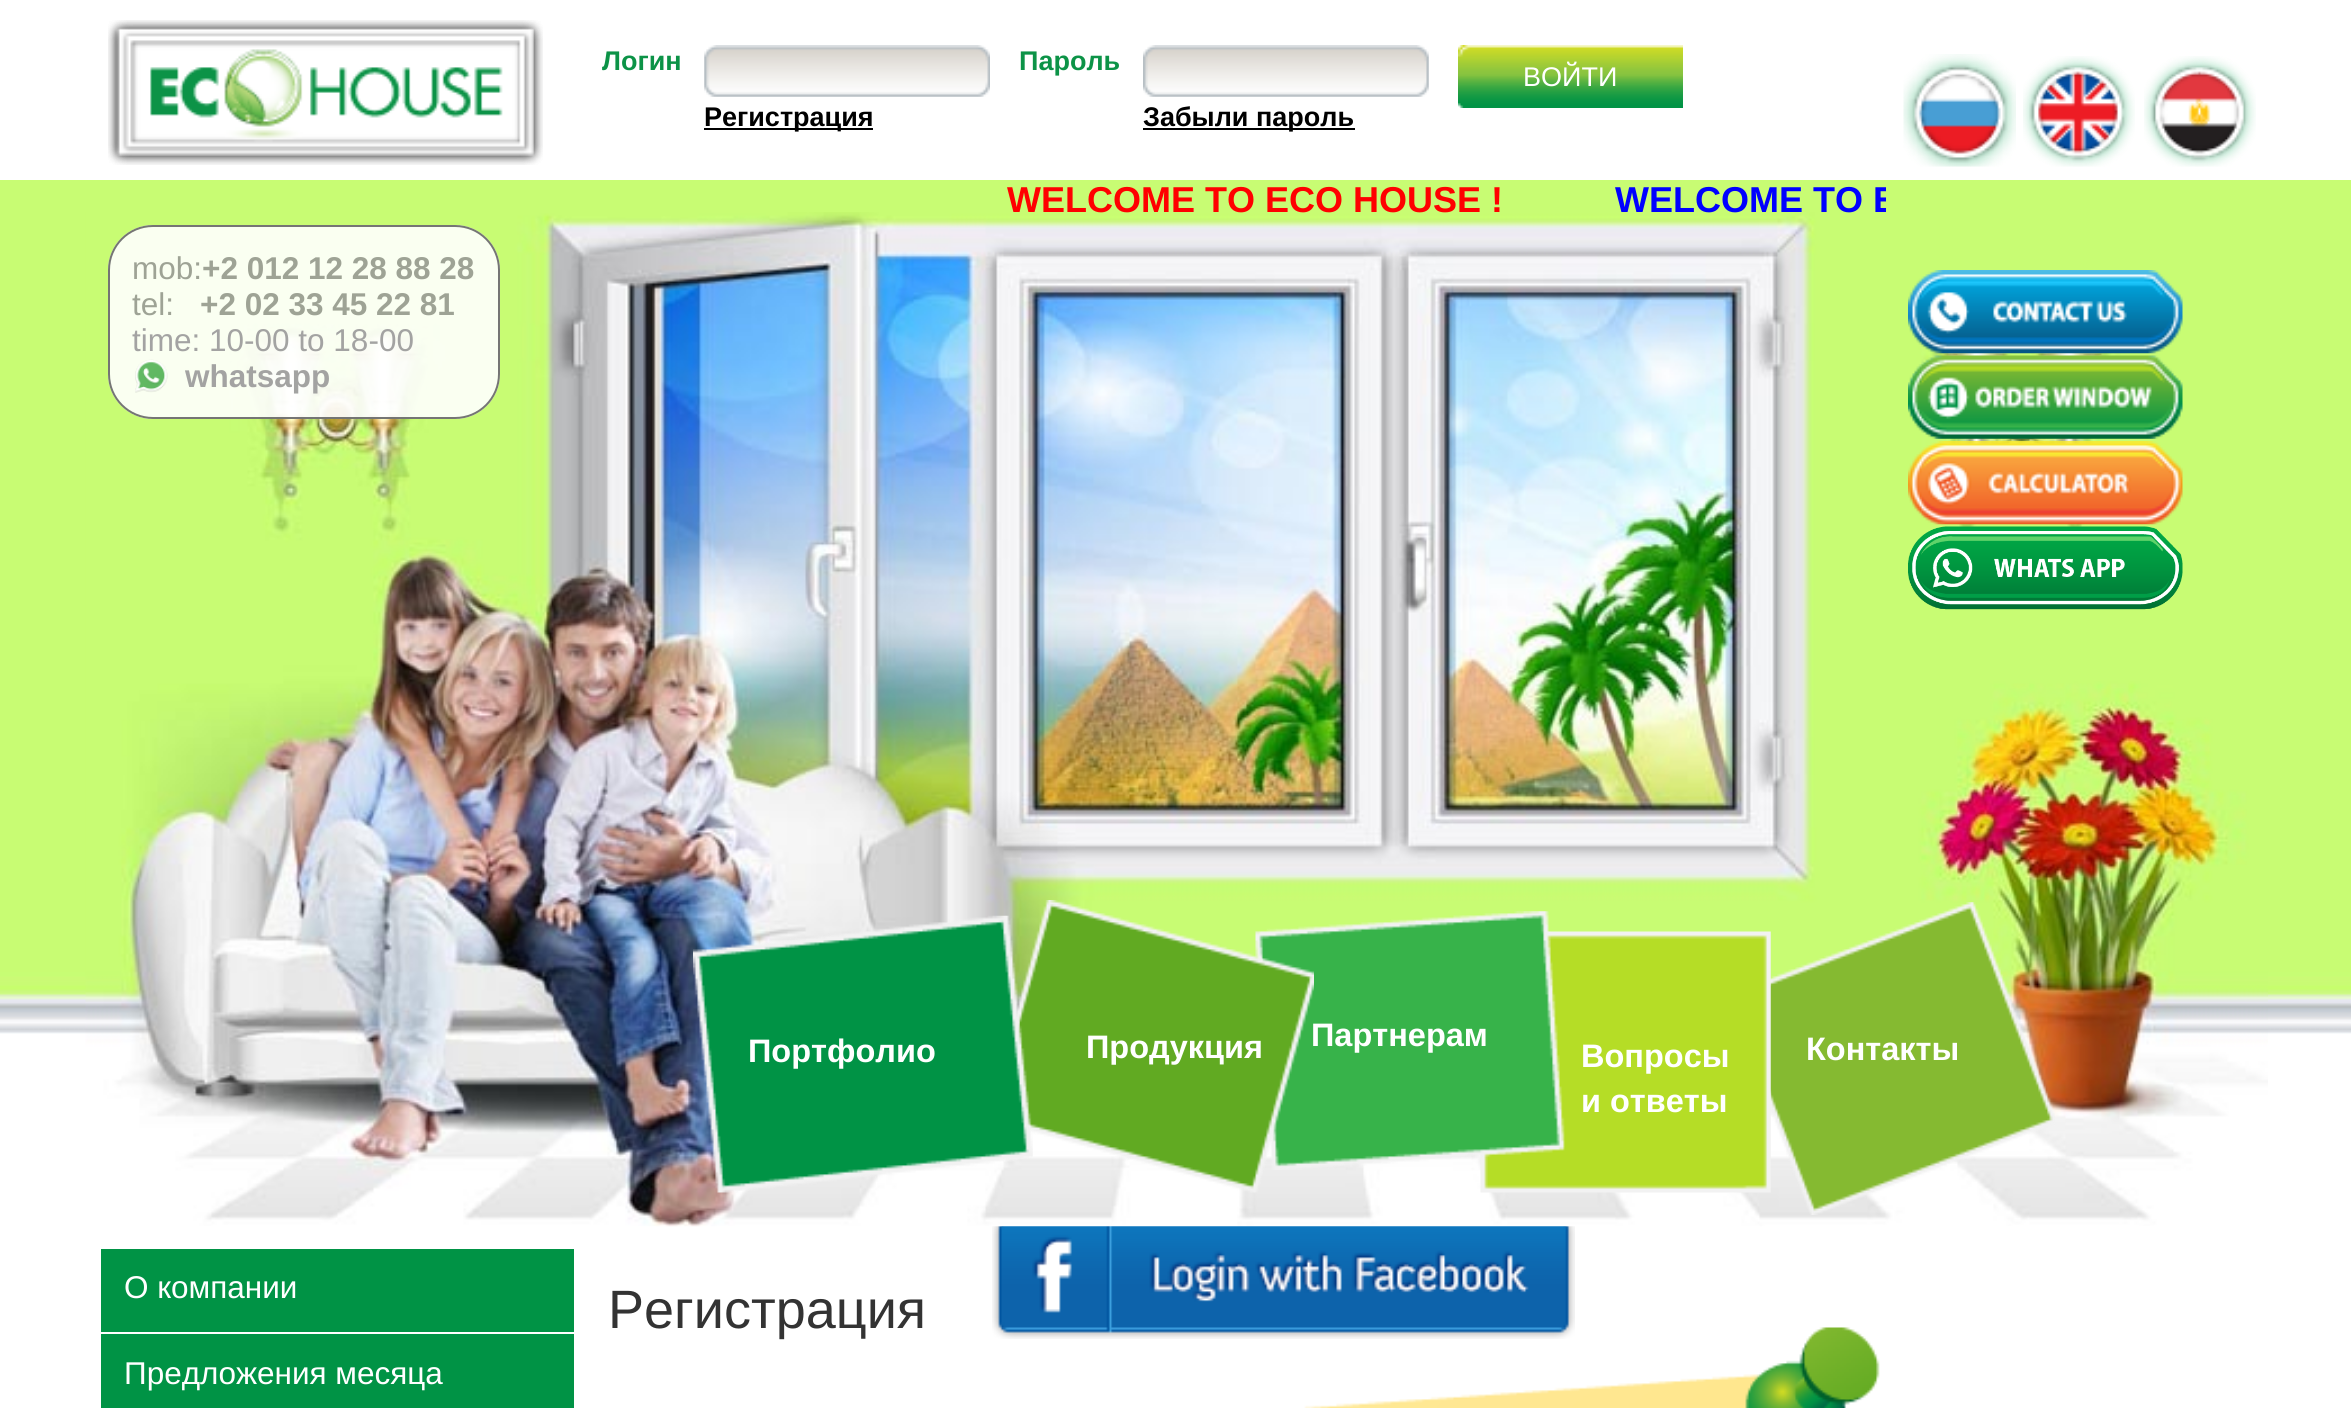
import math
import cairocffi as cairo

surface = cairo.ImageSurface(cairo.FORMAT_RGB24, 2351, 1408)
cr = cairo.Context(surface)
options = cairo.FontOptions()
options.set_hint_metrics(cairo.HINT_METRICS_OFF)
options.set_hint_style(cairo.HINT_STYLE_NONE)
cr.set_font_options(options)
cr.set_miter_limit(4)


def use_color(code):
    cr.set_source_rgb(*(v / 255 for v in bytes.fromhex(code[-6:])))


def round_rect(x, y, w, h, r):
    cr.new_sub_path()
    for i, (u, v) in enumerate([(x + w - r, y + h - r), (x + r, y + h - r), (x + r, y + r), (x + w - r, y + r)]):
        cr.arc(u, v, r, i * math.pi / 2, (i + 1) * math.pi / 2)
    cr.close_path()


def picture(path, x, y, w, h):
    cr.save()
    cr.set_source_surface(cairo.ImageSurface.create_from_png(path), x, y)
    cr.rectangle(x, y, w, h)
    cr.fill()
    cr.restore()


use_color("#ffffff")
cr.paint()
picture("img1.png", 108, 20, 435, 145)
picture("img2.png", 108, 20, 435, 145)
cr.select_font_face("Liberation Sans", cairo.FONT_SLANT_NORMAL, cairo.FONT_WEIGHT_BOLD)
cr.set_font_size(27)
use_color("#0c9347")
cr.move_to(602, 70)
cr.show_text("Логин")
cr.move_to(1019, 70)
cr.show_text("Пароль")
picture("img3.png", 1458, 45, 225, 63)
cr.select_font_face("Liberation Sans")
use_color("#ffffff")
cr.move_to(1523, 86)
cr.show_text("ВОЙТИ")
picture("img4.png", 704, 45, 286, 52)
use_color("#000000")
cr.rectangle(704, 128, 169, 2)
cr.fill()
cr.select_font_face("Liberation Sans", cairo.FONT_SLANT_NORMAL, cairo.FONT_WEIGHT_BOLD)
cr.move_to(704, 126)
cr.show_text("Регистрация")
picture("img5.png", 1143, 45, 286, 52)
cr.rectangle(1143, 128, 212, 2)
cr.fill()
cr.move_to(1143, 126)
cr.show_text("Забыли пароль")
picture("img6.png", 1903, 54, 113, 113)
picture("img7.png", 2023, 56, 112, 111)
picture("img8.png", 2144, 56, 112, 111)
picture("img10.png", 0, 180, 2351, 854)
picture("img21.png", 992, 1226, 583, 113)
picture("img11.png", 85, 212, 2183, 1015)
cr.set_source_rgba(1, 1, 1, 0.9)
round_rect(108, 225, 392, 194, 45)
cr.fill()
round_rect(109, 226, 390, 192, 44)
cr.set_source_rgba(0.4, 0.4, 0.4, 0.9)
cr.stroke()
cr.select_font_face("Liberation Sans")
cr.set_font_size(31.5)
use_color("#9ea395")
cr.move_to(132, 279)
cr.show_text("mob:")
cr.select_font_face("Liberation Sans", cairo.FONT_SLANT_NORMAL, cairo.FONT_WEIGHT_BOLD)
cr.move_to(202, 279)
cr.show_text("+2 012 12 28 88 28")
cr.select_font_face("Liberation Sans")
cr.move_to(132, 315)
cr.show_text("tel:")
cr.select_font_face("Liberation Sans", cairo.FONT_SLANT_NORMAL, cairo.FONT_WEIGHT_BOLD)
cr.move_to(200, 315)
cr.show_text("+2 02 33 45 22 81")
cr.select_font_face("Liberation Sans")
use_color("#a3a3a2")
cr.move_to(132, 351)
cr.show_text("time: 10-00 to 18-00")
picture("img9.png", 135, 359, 33, 34)
cr.select_font_face("Liberation Sans", cairo.FONT_SLANT_NORMAL, cairo.FONT_WEIGHT_BOLD)
cr.move_to(185, 387)
cr.show_text("whatsapp")
cr.set_font_size(36)
use_color("#ff0000")
cr.move_to(1007, 212)
cr.show_text("WELCOME TO ECO HOUSE !")
cr.save()
cr.rectangle(558, 180, 1328, 59)
cr.clip()
use_color("#0000ff")
cr.move_to(1615, 212)
cr.show_text("WELCOME TO E")
cr.restore()
picture("img12.png", 1908, 270, 275, 84)
picture("img13.png", 1908, 355, 275, 84)
picture("img14.png", 1908, 441, 275, 84)
picture("img15.png", 1908, 526, 275, 84)
picture("img20.png", 1770, 902, 285, 313)
picture("img19.png", 1480, 931, 291, 262)
picture("img18.png", 1255, 911, 310, 259)
cr.set_font_size(32.5)
use_color("#ffffff")
cr.move_to(1311, 1046)
cr.show_text("Партнерам")
picture("img17.png", 1016, 900, 298, 293)
picture("img16.png", 693, 915, 340, 278)
cr.move_to(748, 1062)
cr.show_text("Портфолио")
cr.move_to(1086, 1058)
cr.show_text("Продукция")
cr.move_to(1581, 1067)
cr.show_text("Вопросы")
cr.move_to(1581, 1112)
cr.show_text("и ответы")
cr.move_to(1806, 1060)
cr.show_text("Контакты")
use_color("#009345")
cr.rectangle(101, 1249, 473, 83)
cr.fill()
cr.select_font_face("Liberation Sans")
cr.set_font_size(31.5)
use_color("#ffffff")
cr.move_to(124, 1298)
cr.show_text("О компании")
use_color("#009345")
cr.rectangle(101, 1334, 473, 74)
cr.fill()
use_color("#ffffff")
cr.move_to(124, 1384)
cr.show_text("Предложения месяца")
cr.set_font_size(54)
use_color("#333333")
cr.move_to(608, 1328)
cr.show_text("Регистрация")
picture("img22.png", 1304, 1327, 576, 81)
surface.write_to_png("result.png")
